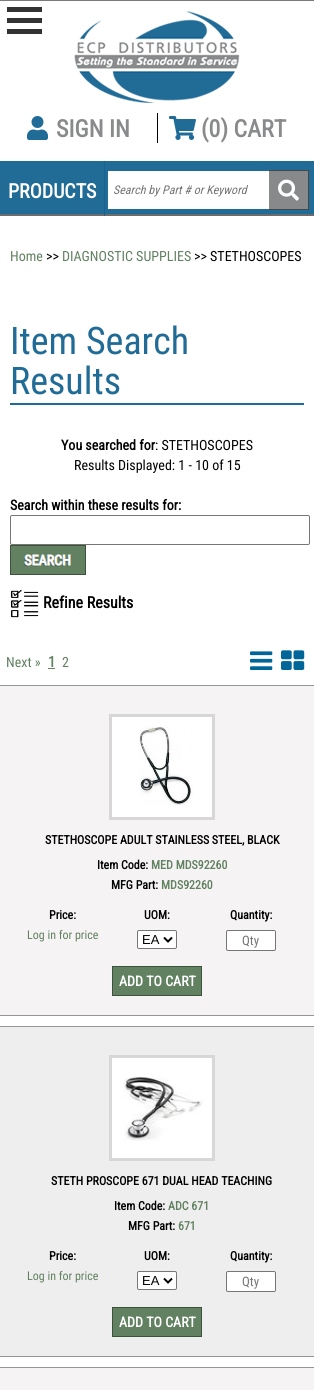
import math
import cairocffi as cairo

surface = cairo.ImageSurface(cairo.FORMAT_RGB24, 314, 1390)
cr = cairo.Context(surface)
options = cairo.FontOptions()
options.set_hint_metrics(cairo.HINT_METRICS_OFF)
options.set_hint_style(cairo.HINT_STYLE_NONE)
cr.set_font_options(options)
cr.set_miter_limit(4)


def use_color(code):
    cr.set_source_rgb(*(v / 255 for v in bytes.fromhex(code[-6:])))


def round_rect(x, y, w, h, r):
    cr.new_sub_path()
    for i, (u, v) in enumerate([(x + w - r, y + h - r), (x + r, y + h - r), (x + r, y + r), (x + w - r, y + r)]):
        cr.arc(u, v, r, i * math.pi / 2, (i + 1) * math.pi / 2)
    cr.close_path()


def picture(path, x, y, w, h):
    cr.save()
    cr.set_source_surface(cairo.ImageSurface.create_from_png(path), x, y)
    cr.rectangle(x, y, w, h)
    cr.fill()
    cr.restore()


use_color("#ffffff")
cr.paint()
use_color("#7b7979")
cr.rectangle(0, 0, 314, 1)
cr.fill()
use_color("#333333")
cr.rectangle(7, 7, 35, 5)
cr.fill()
cr.rectangle(7, 18, 35, 5)
cr.fill()
cr.rectangle(7, 29, 35, 5)
cr.fill()
picture("img1.png", 74, 11, 166, 92)
use_color("#000000")
cr.rectangle(157, 113, 1, 30)
cr.fill()
picture("img2.png", 27, 116, 21, 24)
cr.select_font_face("Roboto Condensed", cairo.FONT_SLANT_NORMAL, cairo.FONT_WEIGHT_BOLD)
cr.set_font_size(24)
use_color("#898a8c")
cr.move_to(56, 137)
cr.show_text("SIGN IN")
picture("img3.png", 169, 116, 27, 24)
cr.move_to(201, 137)
cr.show_text("(0) CART")
use_color("#216b97")
cr.rectangle(0, 161, 314, 53)
cr.fill()
use_color("#6b6c6d")
cr.rectangle(0, 214, 314, 2)
cr.fill()
use_color("#1b6190")
cr.rectangle(104, 161, 1, 55)
cr.fill()
cr.set_font_size(20)
use_color("#ffffff")
cr.move_to(8, 198)
cr.show_text("PRODUCTS")
cr.rectangle(108, 171, 161, 38)
cr.fill()
cr.select_font_face("Roboto Condensed", cairo.FONT_SLANT_ITALIC)
cr.set_font_size(12)
use_color("#757575")
cr.move_to(113, 194)
cr.show_text("Search by Part # or Keyword")
use_color("#88898b")
cr.rectangle(269, 171, 39, 38)
cr.fill()
use_color("#454646")
cr.rectangle(269, 170, 40, 1)
cr.fill()
cr.rectangle(308, 170, 1, 40)
cr.fill()
cr.rectangle(269, 209, 40, 1)
cr.fill()
picture("img4.png", 278, 179, 21, 22)
cr.select_font_face("Roboto Condensed")
cr.set_font_size(14)
use_color("#618161")
cr.move_to(10, 261)
cr.show_text("Home")
use_color("#000000")
cr.move_to(46, 261)
cr.show_text(">>")
use_color("#618161")
cr.move_to(62, 261)
cr.show_text("DIAGNOSTIC SUPPLIES")
use_color("#000000")
cr.move_to(194, 261)
cr.show_text(">> STETHOSCOPES")
use_color("#216b97")
cr.rectangle(10, 403, 294, 2)
cr.fill()
cr.set_font_size(38)
cr.move_to(10, 354)
cr.show_text("Item Search")
cr.move_to(10, 394)
cr.show_text("Results")
cr.select_font_face("Roboto Condensed", cairo.FONT_SLANT_NORMAL, cairo.FONT_WEIGHT_BOLD)
cr.set_font_size(14)
use_color("#000000")
cr.move_to(61, 450)
cr.show_text("You searched for")
cr.select_font_face("Roboto Condensed")
cr.move_to(155, 450)
cr.show_text(": STETHOSCOPES")
cr.move_to(74, 470)
cr.show_text("Results Displayed: 1 - 10 of 15")
cr.select_font_face("Roboto Condensed", cairo.FONT_SLANT_NORMAL, cairo.FONT_WEIGHT_BOLD)
cr.move_to(10, 510)
cr.show_text("Search within these results for:")
round_rect(10.5, 515.5, 299, 29, 1.5)
use_color("#767676")
cr.set_line_width(1)
cr.stroke()
picture("img5.png", 10, 545, 76, 30)
picture("img6.png", 11, 589, 28, 29)
cr.set_font_size(16)
use_color("#000000")
cr.move_to(43, 608)
cr.show_text("Refine Results")
cr.select_font_face("Roboto Condensed")
cr.set_font_size(14)
use_color("#618161")
cr.move_to(6, 667)
cr.show_text("Next »")
cr.select_font_face("Roboto Condensed", cairo.FONT_SLANT_NORMAL, cairo.FONT_WEIGHT_BOLD)
cr.set_font_size(15)
cr.move_to(48, 667)
cr.show_text("1")
cr.rectangle(48, 668, 7, 1)
cr.fill()
cr.select_font_face("Roboto Condensed")
cr.set_font_size(14)
cr.move_to(62, 667)
cr.show_text("2")
picture("img7.png", 250, 651, 23, 19)
picture("img8.png", 281, 650, 24, 20)
use_color("#f5f3f3")
cr.rectangle(0, 686, 314, 329)
cr.fill()
use_color("#939598")
cr.rectangle(0, 685, 314, 1)
cr.fill()
cr.rectangle(0, 1015, 314, 1)
cr.fill()
use_color("#ffffff")
cr.rectangle(110.5, 715.5, 103, 103)
cr.fill_preserve()
use_color("#d7d7d7")
cr.set_line_width(3)
cr.stroke()
picture("img9.png", 139, 726, 54, 79)
cr.select_font_face("Roboto Condensed", cairo.FONT_SLANT_NORMAL, cairo.FONT_WEIGHT_BOLD)
cr.set_font_size(12)
use_color("#000000")
cr.move_to(45, 844)
cr.show_text("STETHOSCOPE ADULT STAINLESS STEEL, BLACK")
cr.move_to(97, 869)
cr.show_text("Item Code:")
use_color("#618161")
cr.move_to(151, 869)
cr.show_text("MED MDS92260")
use_color("#000000")
cr.move_to(111, 889)
cr.show_text("MFG Part:")
use_color("#618161")
cr.move_to(161, 889)
cr.show_text("MDS92260")
use_color("#000000")
cr.move_to(49, 919)
cr.show_text("Price:")
cr.select_font_face("Roboto Condensed")
use_color("#618161")
cr.move_to(27, 939)
cr.show_text("Log in for price")
cr.select_font_face("Roboto Condensed", cairo.FONT_SLANT_NORMAL, cairo.FONT_WEIGHT_BOLD)
use_color("#000000")
cr.move_to(144, 919)
cr.show_text("UOM:")
use_color("#ffffff")
round_rect(137.5, 930.5, 39, 18, 1.5)
cr.fill_preserve()
use_color("#767676")
cr.set_line_width(1)
cr.stroke()
cr.new_path()
cr.move_to(164, 937.5)
cr.line_to(168, 941.5)
cr.line_to(172, 937.5)
use_color("#000000")
cr.set_line_width(2)
cr.stroke()
cr.select_font_face("Liberation Sans")
cr.set_font_size(13)
cr.move_to(142, 944)
cr.show_text("EA")
cr.select_font_face("Roboto Condensed", cairo.FONT_SLANT_NORMAL, cairo.FONT_WEIGHT_BOLD)
cr.set_font_size(12)
cr.move_to(230, 919)
cr.show_text("Quantity:")
use_color("#ffffff")
round_rect(226.5, 930.5, 49, 20, 1.5)
cr.fill_preserve()
use_color("#767676")
cr.set_line_width(1)
cr.stroke()
cr.select_font_face("Roboto Condensed")
cr.set_font_size(13)
use_color("#757575")
cr.move_to(242, 945)
cr.show_text("Qty")
use_color("#618161")
cr.rectangle(112.5, 966.5, 89, 29)
cr.fill_preserve()
use_color("#3d523d")
cr.stroke()
cr.select_font_face("Roboto Condensed", cairo.FONT_SLANT_NORMAL, cairo.FONT_WEIGHT_BOLD)
cr.set_font_size(14)
use_color("#ffffff")
cr.move_to(119, 986)
cr.show_text("ADD TO CART")
use_color("#eeeeee")
cr.rectangle(0, 1027, 314, 329)
cr.fill()
use_color("#939598")
cr.rectangle(0, 1026, 314, 1)
cr.fill()
cr.rectangle(0, 1356, 314, 1)
cr.fill()
use_color("#ffffff")
cr.rectangle(110.5, 1056.5, 103, 103)
cr.fill_preserve()
use_color("#d7d7d7")
cr.set_line_width(3)
cr.stroke()
picture("img10.png", 124, 1076, 79, 65)
cr.set_font_size(12)
use_color("#000000")
cr.move_to(51, 1185)
cr.show_text("STETH PROSCOPE 671 DUAL HEAD TEACHING")
cr.move_to(114, 1210)
cr.show_text("Item Code:")
use_color("#618161")
cr.move_to(168, 1210)
cr.show_text("ADC 671")
use_color("#000000")
cr.move_to(128, 1230)
cr.show_text("MFG Part:")
use_color("#618161")
cr.move_to(178, 1230)
cr.show_text("671")
use_color("#000000")
cr.move_to(49, 1260)
cr.show_text("Price:")
cr.select_font_face("Roboto Condensed")
use_color("#618161")
cr.move_to(27, 1280)
cr.show_text("Log in for price")
cr.select_font_face("Roboto Condensed", cairo.FONT_SLANT_NORMAL, cairo.FONT_WEIGHT_BOLD)
use_color("#000000")
cr.move_to(144, 1260)
cr.show_text("UOM:")
use_color("#ffffff")
round_rect(137.5, 1271.5, 39, 18, 1.5)
cr.fill_preserve()
use_color("#767676")
cr.set_line_width(1)
cr.stroke()
cr.new_path()
cr.move_to(164, 1278.5)
cr.line_to(168, 1282.5)
cr.line_to(172, 1278.5)
use_color("#000000")
cr.set_line_width(2)
cr.stroke()
cr.select_font_face("Liberation Sans")
cr.set_font_size(13)
cr.move_to(142, 1285)
cr.show_text("EA")
cr.select_font_face("Roboto Condensed", cairo.FONT_SLANT_NORMAL, cairo.FONT_WEIGHT_BOLD)
cr.set_font_size(12)
cr.move_to(230, 1260)
cr.show_text("Quantity:")
use_color("#ffffff")
round_rect(226.5, 1271.5, 49, 20, 1.5)
cr.fill_preserve()
use_color("#767676")
cr.set_line_width(1)
cr.stroke()
cr.select_font_face("Roboto Condensed")
cr.set_font_size(13)
use_color("#757575")
cr.move_to(242, 1286)
cr.show_text("Qty")
use_color("#618161")
cr.rectangle(112.5, 1307.5, 89, 29)
cr.fill_preserve()
use_color("#3d523d")
cr.stroke()
cr.select_font_face("Roboto Condensed", cairo.FONT_SLANT_NORMAL, cairo.FONT_WEIGHT_BOLD)
cr.set_font_size(14)
use_color("#ffffff")
cr.move_to(119, 1327)
cr.show_text("ADD TO CART")
use_color("#f5f3f3")
cr.rectangle(0, 1368, 314, 22)
cr.fill()
use_color("#939598")
cr.rectangle(0, 1367, 314, 1)
cr.fill()
surface.write_to_png("result.png")
